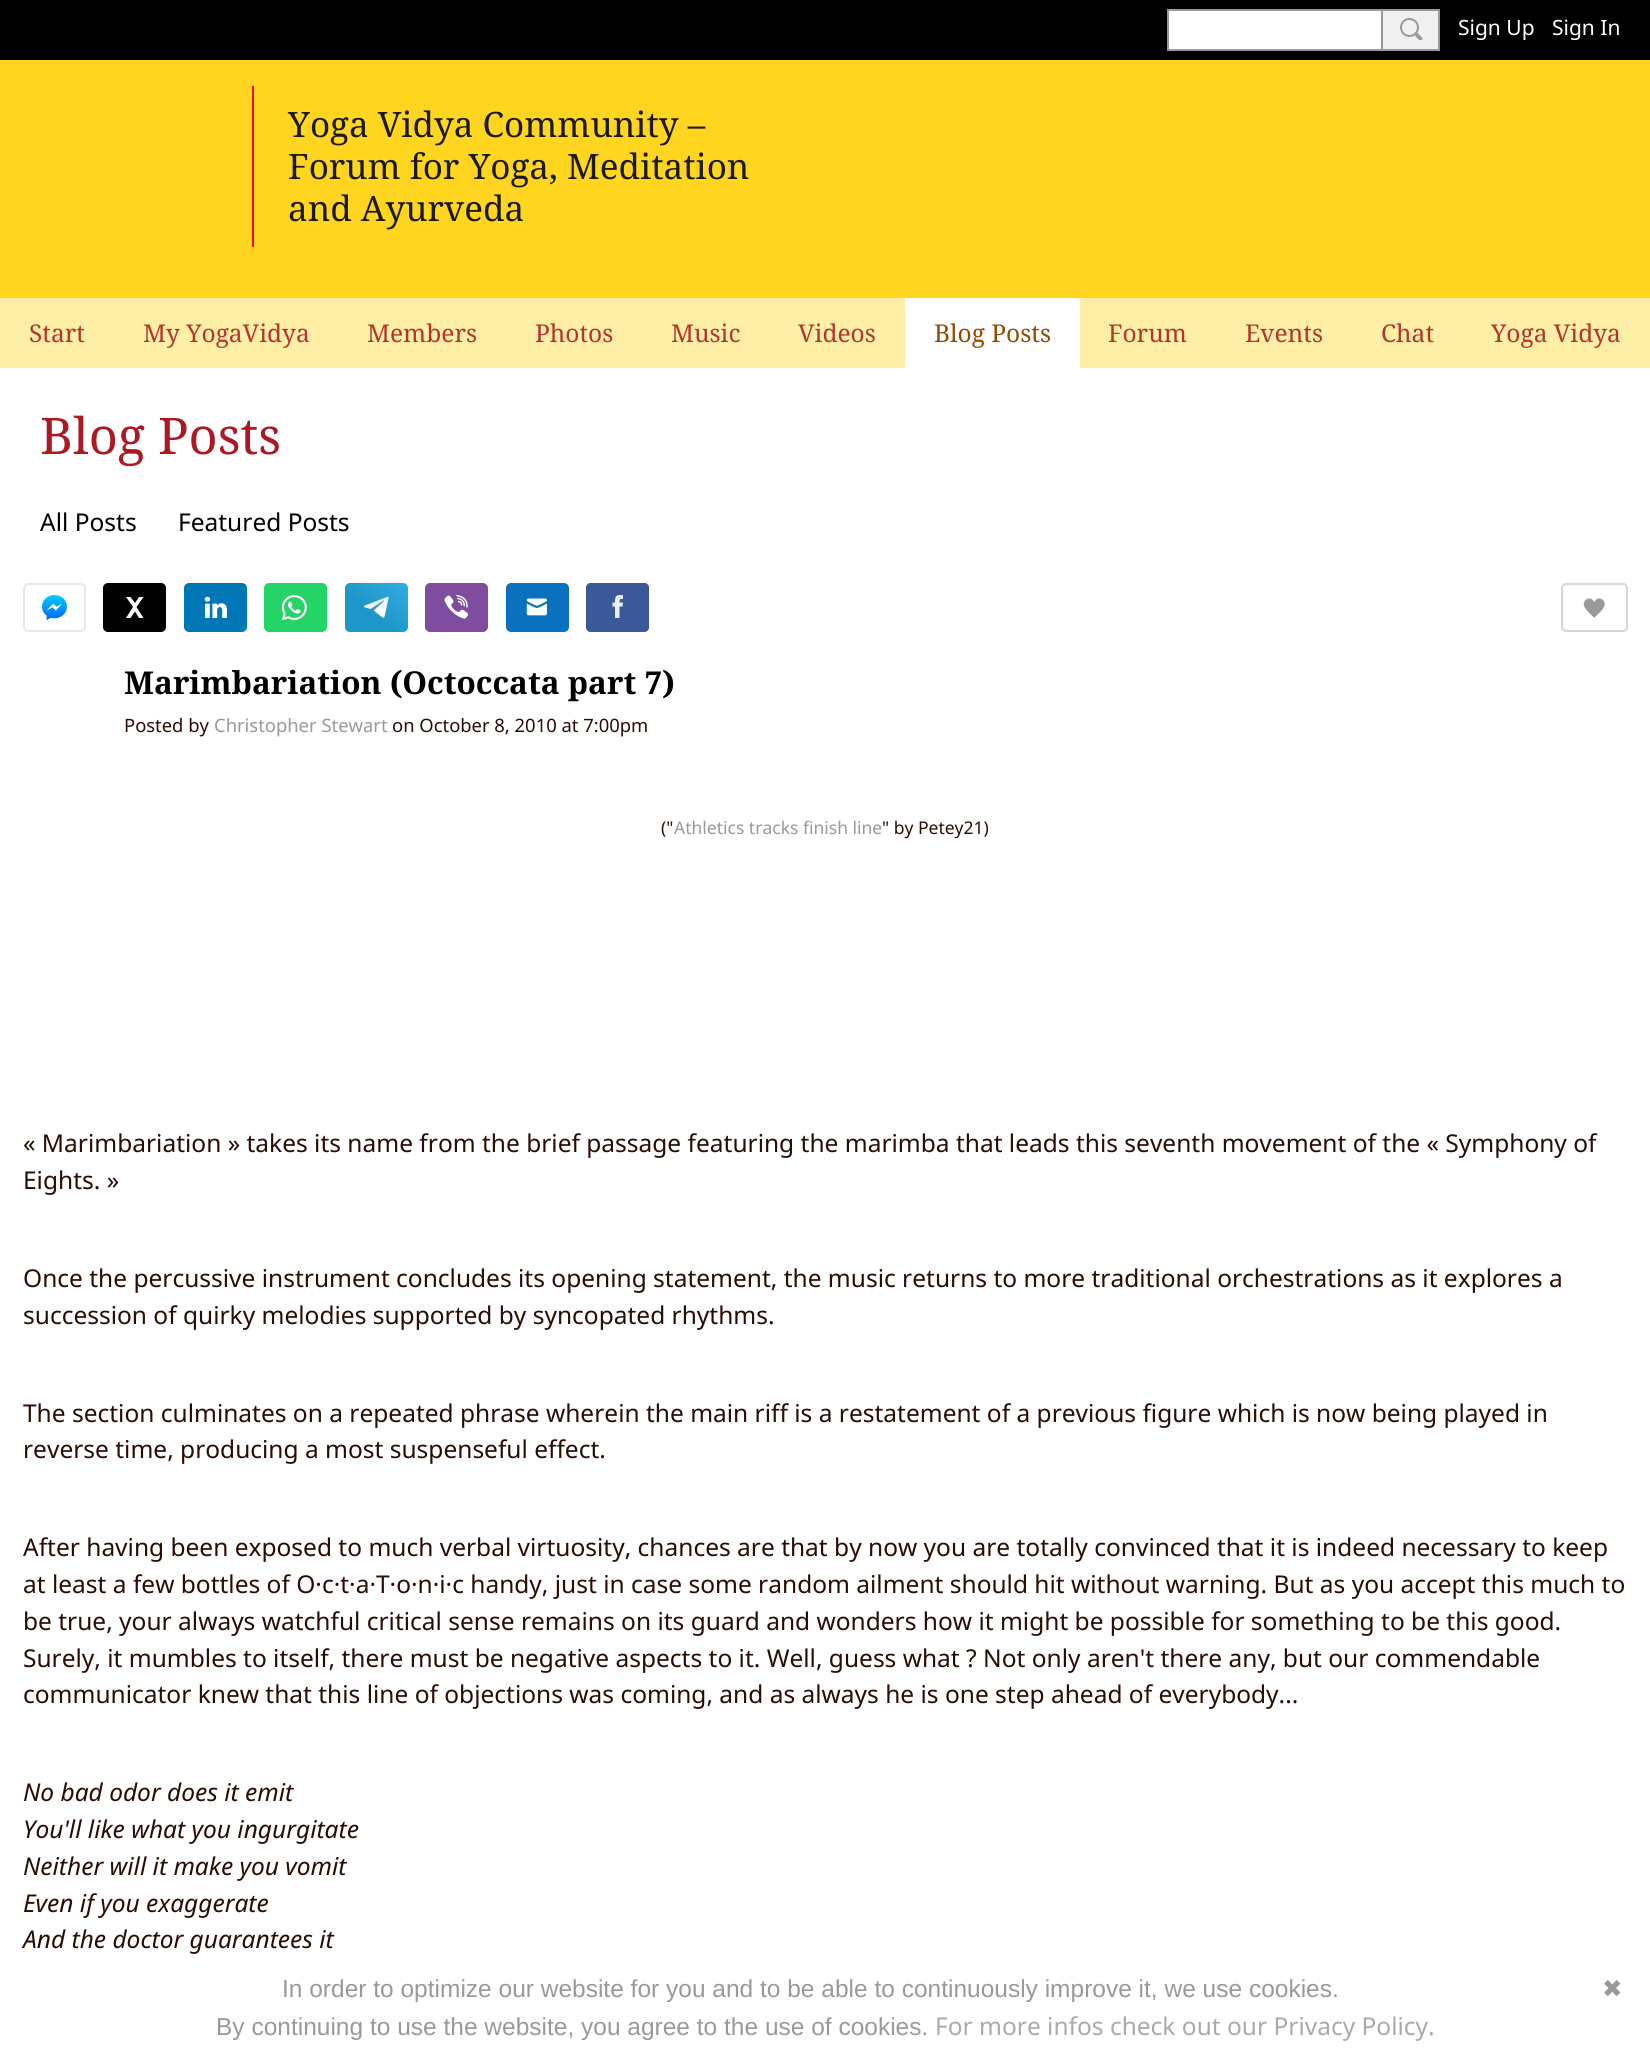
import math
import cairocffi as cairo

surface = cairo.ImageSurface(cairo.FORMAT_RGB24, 1650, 2053)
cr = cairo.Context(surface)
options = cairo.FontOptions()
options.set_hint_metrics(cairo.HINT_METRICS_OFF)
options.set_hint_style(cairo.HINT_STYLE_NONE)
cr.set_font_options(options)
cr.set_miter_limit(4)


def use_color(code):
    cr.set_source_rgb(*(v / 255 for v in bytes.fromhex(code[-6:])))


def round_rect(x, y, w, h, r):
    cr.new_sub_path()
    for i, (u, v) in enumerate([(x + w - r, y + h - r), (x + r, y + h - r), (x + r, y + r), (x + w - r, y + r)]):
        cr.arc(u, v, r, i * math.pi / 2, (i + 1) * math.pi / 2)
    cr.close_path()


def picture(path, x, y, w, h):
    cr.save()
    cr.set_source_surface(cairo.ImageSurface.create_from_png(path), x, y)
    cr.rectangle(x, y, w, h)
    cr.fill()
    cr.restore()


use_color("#ffd520")
cr.paint()
use_color("#000000")
cr.rectangle(0, 0, 1650, 60)
cr.fill()
use_color("#ffffff")
cr.rectangle(1168, 10, 214, 40)
cr.fill_preserve()
use_color("#999999")
cr.stroke()
cr.set_source_rgba(1, 1, 1, 0.94)
cr.rectangle(1382, 10, 57, 40)
cr.fill_preserve()
use_color("#999999")
cr.stroke()
cr.arc(1409.5, 27.5, 8.5, 0, 2 * math.pi)
cr.stroke()
cr.new_path()
cr.move_to(1418, 33.5)
cr.line_to(1422, 37.5)
cr.curve_to(1422.5, 38, 1422.5, 39, 1422, 39.5)
cr.curve_to(1420, 42, 1416.5, 37.5, 1415.5, 36)
cr.curve_to(1414, 34.5, 1416.5, 32, 1418, 33.5)
cr.close_path()
cr.fill()
cr.select_font_face("Noto Sans")
cr.set_font_size(21)
use_color("#ffffff")
cr.move_to(1458, 35)
cr.show_text("Sign Up")
cr.move_to(1552, 35)
cr.show_text("Sign In")
use_color("#ff0000")
cr.rectangle(252, 86, 2, 161)
cr.fill()
cr.select_font_face("Noto Serif")
cr.set_font_size(35)
use_color("#1a1a1a")
cr.move_to(288, 137)
cr.show_text("Yoga Vidya Community –")
cr.move_to(288, 179)
cr.show_text("Forum for Yoga, Meditation")
cr.move_to(288, 221)
cr.show_text("and Ayurveda")
use_color("#ffeea6")
cr.rectangle(0, 298, 1650, 70)
cr.fill()
cr.set_font_size(24.5)
use_color("#b3342e")
cr.move_to(29, 342)
cr.show_text("Start")
cr.move_to(143, 342)
cr.show_text("My YogaVidya")
cr.move_to(367, 342)
cr.show_text("Members")
cr.move_to(535, 342)
cr.show_text("Photos")
cr.move_to(671, 342)
cr.show_text("Music")
cr.move_to(798, 342)
cr.show_text("Videos")
use_color("#ffffff")
cr.rectangle(905, 298, 175, 70)
cr.fill()
use_color("#944a00")
cr.move_to(934, 342)
cr.show_text("Blog Posts")
use_color("#b3342e")
cr.move_to(1108, 342)
cr.show_text("Forum")
cr.move_to(1245, 342)
cr.show_text("Events")
cr.move_to(1381, 342)
cr.show_text("Chat")
cr.move_to(1491, 342)
cr.show_text("Yoga Vidya")
use_color("#ffffff")
cr.rectangle(0, 368, 1650, 1685)
cr.fill()
cr.set_font_size(50.5)
use_color("#ac1924")
cr.move_to(40, 454)
cr.show_text("Blog Posts")
cr.select_font_face("Noto Sans")
cr.set_font_size(24.5)
use_color("#000000")
cr.move_to(40, 531)
cr.show_text("All Posts")
cr.move_to(178, 531)
cr.show_text("Featured Posts")
picture("img1.png", 23, 583, 63, 49)
round_rect(103, 583, 63, 49, 5)
cr.fill()
use_color("#ffffff")
cr.set_fill_rule(cairo.FILL_RULE_EVEN_ODD)
cr.new_path()
cr.move_to(126, 597)
cr.line_to(133, 607)
cr.line_to(126, 618)
cr.line_to(130.5, 618)
cr.line_to(135, 611.5)
cr.line_to(139, 618)
cr.line_to(143.5, 618)
cr.line_to(136.5, 607)
cr.line_to(143.5, 597)
cr.line_to(139, 597)
cr.line_to(135, 603)
cr.line_to(130.5, 597)
cr.close_path()
cr.fill()
picture("img2.png", 184, 583, 63, 49)
picture("img3.png", 264, 583, 63, 49)
gradient = cairo.LinearGradient(414, 583, 381, 623)
gradient.add_color_stop_rgba(0, 0.216, 0.682, 0.886, 1)
gradient.add_color_stop_rgba(1, 0.118, 0.588, 0.784, 1)
cr.set_source(gradient)
round_rect(345, 583, 63, 49, 5)
cr.fill()
gradient = cairo.LinearGradient(379, 606, 382, 612)
gradient.add_color_stop_rgba(0, 0.937, 0.969, 0.988, 1)
gradient.add_color_stop_rgba(1, 1, 1, 1, 1)
cr.set_source(gradient)
cr.set_fill_rule(cairo.FILL_RULE_WINDING)
cr.new_path()
cr.move_to(373.5, 610.5)
cr.line_to(382.5, 617.5)
cr.curve_to(383.5, 618, 384.5, 617.5, 384.5, 616.5)
cr.line_to(388.5, 598.5)
cr.curve_to(389, 597, 388, 596.5, 387, 597)
cr.line_to(365, 605.5)
cr.curve_to(363.5, 606, 363.5, 607, 365, 607.5)
cr.line_to(370.5, 609)
cr.line_to(383.5, 600.5)
cr.curve_to(384, 600.5, 384.5, 600.5, 384, 601)
cr.fill()
picture("img4.png", 425, 583, 63, 49)
picture("img5.png", 506, 583, 63, 49)
use_color("#3b5998")
round_rect(586, 583, 63, 49, 5)
cr.fill()
cr.set_source_rgba(0.231, 0.349, 0.596, 0.9)
round_rect(586, 583, 63, 49, 5)
cr.fill()
use_color("#ebeef5")
cr.new_path()
cr.move_to(619.5, 618)
cr.line_to(619.5, 606.5)
cr.line_to(622.5, 606.5)
cr.line_to(623, 602.5)
cr.line_to(619.5, 602.5)
cr.curve_to(619.5, 599, 619.5, 599, 623, 599)
cr.line_to(623, 595)
cr.curve_to(616, 595, 615, 595, 615, 602.5)
cr.line_to(612.5, 602.5)
cr.line_to(612.5, 606.5)
cr.line_to(615, 606.5)
cr.line_to(615, 618)
cr.close_path()
cr.fill()
round_rect(1562, 584, 65, 47, 4)
use_color("#d6d6d6")
cr.stroke()
picture("img6.png", 1583, 598, 22, 20)
cr.select_font_face("Noto Serif", cairo.FONT_SLANT_NORMAL, cairo.FONT_WEIGHT_BOLD)
cr.set_font_size(31.5)
use_color("#000000")
cr.move_to(124, 694)
cr.show_text("Marimbariation (Octoccata part 7)")
cr.select_font_face("Noto Sans")
cr.set_font_size(18.4)
use_color("#2b0c03")
cr.move_to(124, 732)
cr.show_text("Posted by")
use_color("#999999")
cr.move_to(214, 732)
cr.show_text("Christopher Stewart")
use_color("#2b0c03")
cr.move_to(392, 732)
cr.show_text("on October 8, 2010 at 7:00pm")
cr.set_font_size(17.5)
cr.move_to(661, 834)
cr.show_text("(\"")
use_color("#999999")
cr.move_to(674, 834)
cr.show_text("Athletics tracks finish line")
use_color("#2b0c03")
cr.move_to(882, 834)
cr.show_text("\" by Petey21)")
cr.set_font_size(24.5)
cr.move_to(23, 1152)
cr.show_text("« Marimbariation » takes its name from the brief passage featuring the marimba that leads this seventh movement of the « Symphony of")
cr.move_to(23, 1189)
cr.show_text("Eights. »")
cr.move_to(23, 1287)
cr.show_text("Once the percussive instrument concludes its opening statement, the music returns to more traditional orchestrations as it explores a")
cr.move_to(23, 1324)
cr.show_text("succession of quirky melodies supported by syncopated rhythms.")
cr.move_to(23, 1422)
cr.show_text("The section culminates on a repeated phrase wherein the main riff is a restatement of a previous figure which is now being played in")
cr.move_to(23, 1458)
cr.show_text("reverse time, producing a most suspenseful effect.")
cr.move_to(23, 1556)
cr.show_text("After having been exposed to much verbal virtuosity, chances are that by now you are totally convinced that it is indeed necessary to keep")
cr.move_to(23, 1593)
cr.show_text("at least a few bottles of O·c·t·a·T·o·n·i·c handy, just in case some random ailment should hit without warning. But as you accept this much to")
cr.move_to(23, 1630)
cr.show_text("be true, your always watchful critical sense remains on its guard and wonders how it might be possible for something to be this good.")
cr.move_to(23, 1667)
cr.show_text("Surely, it mumbles to itself, there must be negative aspects to it. Well, guess what ? Not only aren't there any, but our commendable")
cr.move_to(23, 1703)
cr.show_text("communicator knew that this line of objections was coming, and as always he is one step ahead of everybody...")
cr.select_font_face("Noto Sans", cairo.FONT_SLANT_ITALIC)
cr.move_to(23, 1801)
cr.show_text("No bad odor does it emit")
cr.move_to(23, 1838)
cr.show_text("You'll like what you ingurgitate")
cr.move_to(23, 1875)
cr.show_text("Neither will it make you vomit")
cr.move_to(23, 1912)
cr.show_text("Even if you exaggerate")
cr.move_to(23, 1948)
cr.show_text("And the doctor guarantees it")
cr.select_font_face("Liberation Sans")
use_color("#999999")
cr.move_to(282, 1997)
cr.show_text("In order to optimize our website for you and to be able to continuously improve it, we use cookies.")
cr.select_font_face("DejaVu Sans")
cr.move_to(1602, 1997)
cr.show_text("✖")
cr.select_font_face("Liberation Sans")
cr.move_to(216, 2035)
cr.show_text("By continuing to use the website, you agree to the use of cookies.")
cr.select_font_face("Noto Sans")
use_color("#aaaaaa")
cr.move_to(935, 2035)
cr.show_text("For more infos check out our Privacy Policy.")
surface.write_to_png("result.png")
